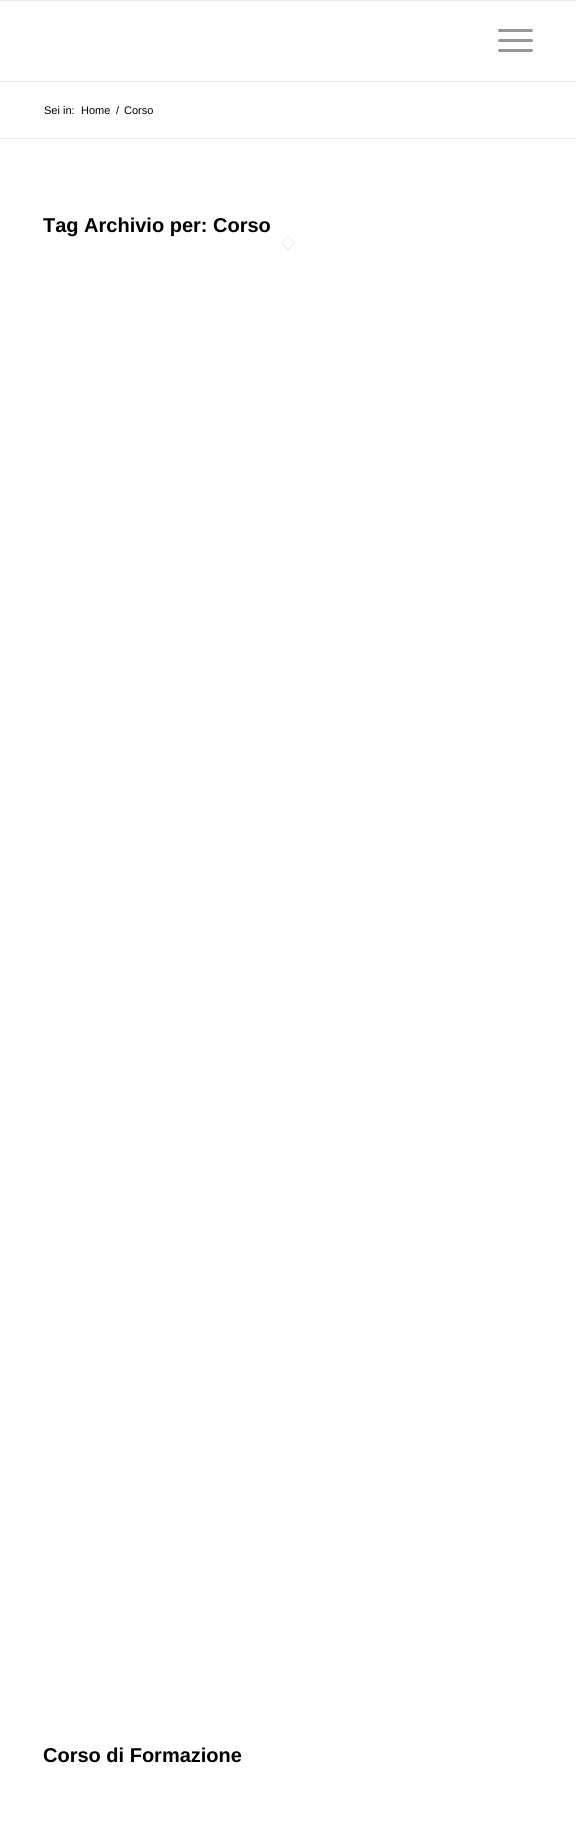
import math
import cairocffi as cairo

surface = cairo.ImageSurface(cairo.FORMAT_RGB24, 576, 1842)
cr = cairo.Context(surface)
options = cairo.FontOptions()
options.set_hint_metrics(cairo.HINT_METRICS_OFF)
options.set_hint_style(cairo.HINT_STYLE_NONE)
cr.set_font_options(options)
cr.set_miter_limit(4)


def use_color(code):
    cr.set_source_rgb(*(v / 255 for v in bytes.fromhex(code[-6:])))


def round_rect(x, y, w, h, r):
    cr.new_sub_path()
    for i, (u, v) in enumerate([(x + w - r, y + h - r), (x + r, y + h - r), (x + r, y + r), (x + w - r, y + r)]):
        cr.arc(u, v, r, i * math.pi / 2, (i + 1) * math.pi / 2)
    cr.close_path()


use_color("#ffffff")
cr.paint()
use_color("#ebebeb")
cr.rectangle(0, 0, 576, 1)
cr.fill()
cr.rectangle(0, 81, 576, 1)
cr.fill()
use_color("#969696")
round_rect(498, 39, 35, 3, 1.5)
cr.fill()
round_rect(498, 29, 35, 3, 1.5)
cr.fill()
round_rect(498, 49, 35, 3, 1.5)
cr.fill()
cr.select_font_face("Liberation Sans")
cr.set_font_size(11)
use_color("#000000")
cr.move_to(44, 114)
cr.show_text("Sei in:")
cr.move_to(81, 114)
cr.show_text("Home")
cr.move_to(116, 114)
cr.show_text("/")
cr.move_to(124, 114)
cr.show_text("Corso")
use_color("#ebebeb")
cr.rectangle(0, 138, 576, 1)
cr.fill()
cr.select_font_face("Liberation Sans", cairo.FONT_SLANT_NORMAL, cairo.FONT_WEIGHT_BOLD)
cr.set_font_size(20)
use_color("#000000")
cr.move_to(43, 232)
cr.show_text("Tag Archivio per: Corso")
cr.new_path()
cr.move_to(288, 236.5)
cr.line_to(294.5, 243)
cr.line_to(288, 249.5)
cr.line_to(281.5, 243)
cr.close_path()
use_color("#ebebeb")
cr.set_line_width(1)
cr.stroke()
use_color("#000000")
cr.move_to(43, 1762)
cr.show_text("Corso di Formazione")
surface.write_to_png("result.png")
